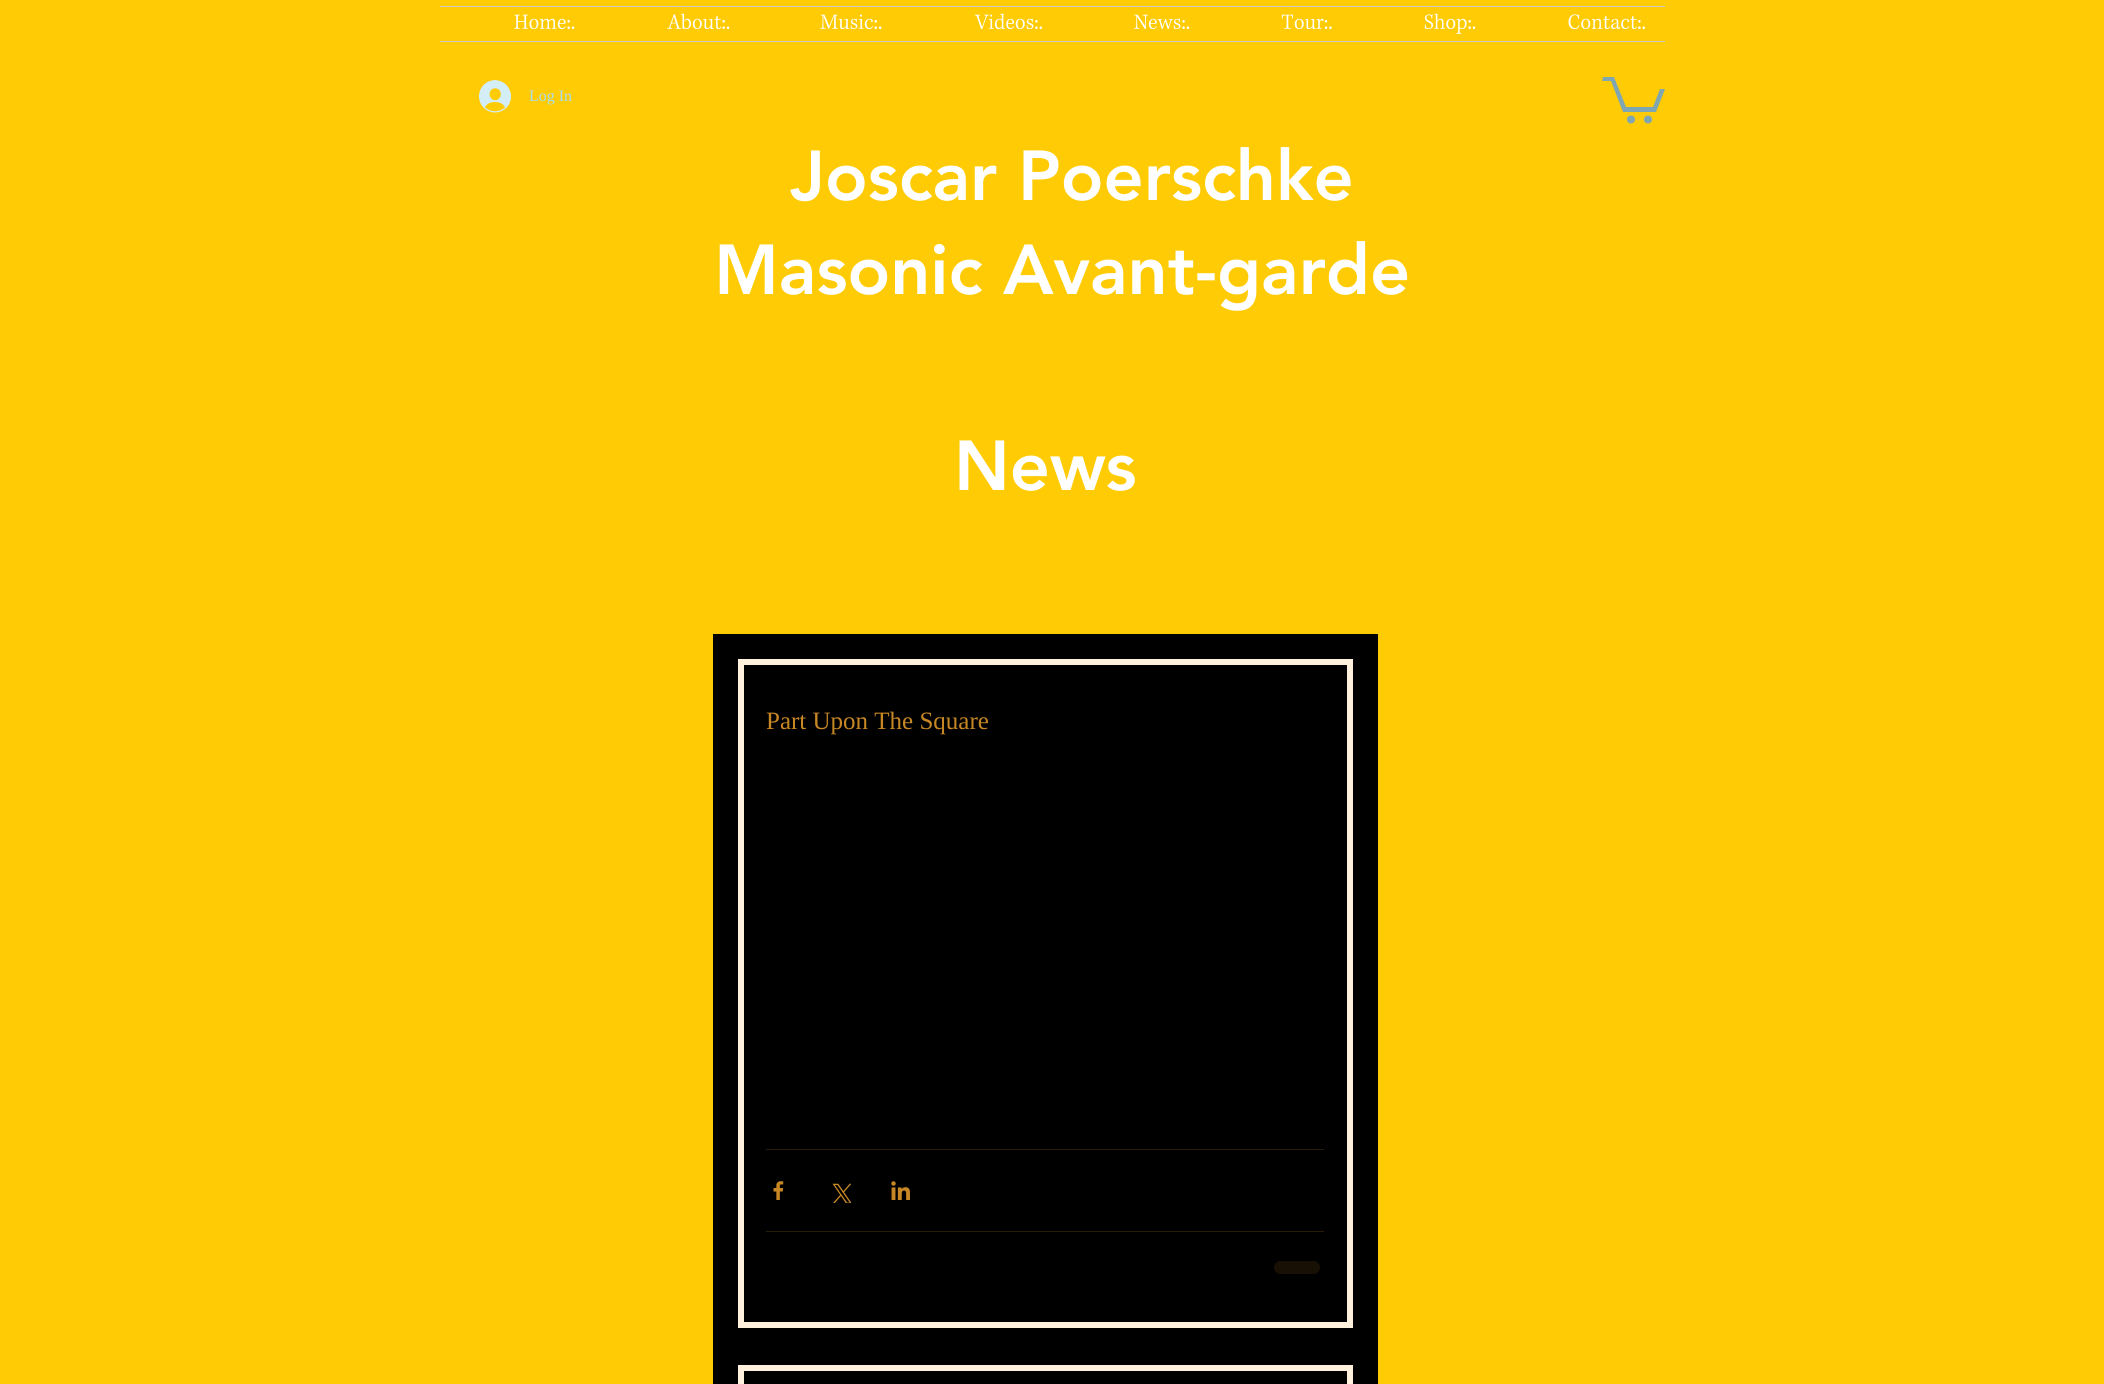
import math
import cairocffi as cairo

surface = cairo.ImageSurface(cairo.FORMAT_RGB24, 2104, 1384)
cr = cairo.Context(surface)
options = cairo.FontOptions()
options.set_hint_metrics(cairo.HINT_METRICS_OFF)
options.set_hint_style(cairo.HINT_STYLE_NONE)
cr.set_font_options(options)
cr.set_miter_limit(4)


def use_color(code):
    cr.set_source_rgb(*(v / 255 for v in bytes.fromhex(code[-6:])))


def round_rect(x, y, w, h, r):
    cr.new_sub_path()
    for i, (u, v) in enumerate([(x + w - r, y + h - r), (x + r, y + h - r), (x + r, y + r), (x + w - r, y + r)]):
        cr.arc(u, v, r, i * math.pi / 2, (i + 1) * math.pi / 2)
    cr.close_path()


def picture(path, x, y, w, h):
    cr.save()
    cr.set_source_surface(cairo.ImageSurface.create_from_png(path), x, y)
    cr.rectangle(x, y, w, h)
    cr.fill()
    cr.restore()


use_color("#ffcb05")
cr.paint()
use_color("#cacaca")
cr.rectangle(440, 6, 1225, 1)
cr.fill()
cr.rectangle(440, 41, 1225, 1)
cr.fill()
picture("img1.png", 514, 14, 61, 16)
picture("img2.png", 667, 13, 63, 17)
picture("img3.png", 820, 14, 62, 16)
picture("img4.png", 974, 13, 68, 17)
picture("img5.png", 1134, 14, 56, 16)
picture("img6.png", 1281, 14, 51, 16)
picture("img7.png", 1424, 13, 52, 21)
picture("img8.png", 1568, 14, 77, 16)
picture("img9.png", 479, 80, 32, 33)
cr.select_font_face("Liberation Serif")
cr.set_font_size(16)
use_color("#aadeef")
cr.move_to(529, 101)
cr.show_text("Log In")
use_color("#7fa6b3")
cr.new_path()
cr.move_to(1665, 89)
cr.line_to(1656, 112)
cr.line_to(1623, 112)
cr.line_to(1611, 81)
cr.line_to(1602, 81)
cr.line_to(1603, 77)
cr.line_to(1614, 77)
cr.line_to(1626, 107)
cr.line_to(1653, 107)
cr.line_to(1660, 89)
cr.fill()
cr.arc(1648, 119.5, 4, 0, 2 * math.pi)
cr.fill()
cr.arc(1631, 119.5, 4, 0, 2 * math.pi)
cr.fill()
cr.select_font_face("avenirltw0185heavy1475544 Black")
cr.set_font_size(70)
use_color("#ffffff")
cr.move_to(790, 200)
cr.show_text("Joscar Poerschke")
cr.move_to(714, 294)
cr.show_text("Masonic Avant-garde")
cr.move_to(954, 490)
cr.show_text("News")
use_color("#000000")
cr.rectangle(713, 634, 665, 750)
cr.fill()
cr.rectangle(741, 662, 609, 663)
use_color("#fff1db")
cr.set_line_width(6)
cr.stroke()
cr.select_font_face("Liberation Serif")
cr.set_font_size(25)
use_color("#c78725")
cr.move_to(766, 729)
cr.show_text("Part Upon The Square")
use_color("#281b07")
cr.rectangle(766, 1149, 558, 1)
cr.fill()
picture("img10.png", 773, 1181, 11, 19)
picture("img11.png", 832, 1183, 19, 20)
picture("img12.png", 891, 1181, 19, 19)
cr.rectangle(766, 1231, 558, 1)
cr.fill()
use_color("#181004")
round_rect(1274, 1261, 46, 13, 6.5)
cr.fill()
cr.rectangle(741, 1368, 609, 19)
use_color("#fff1db")
cr.stroke()
surface.write_to_png("result.png")
